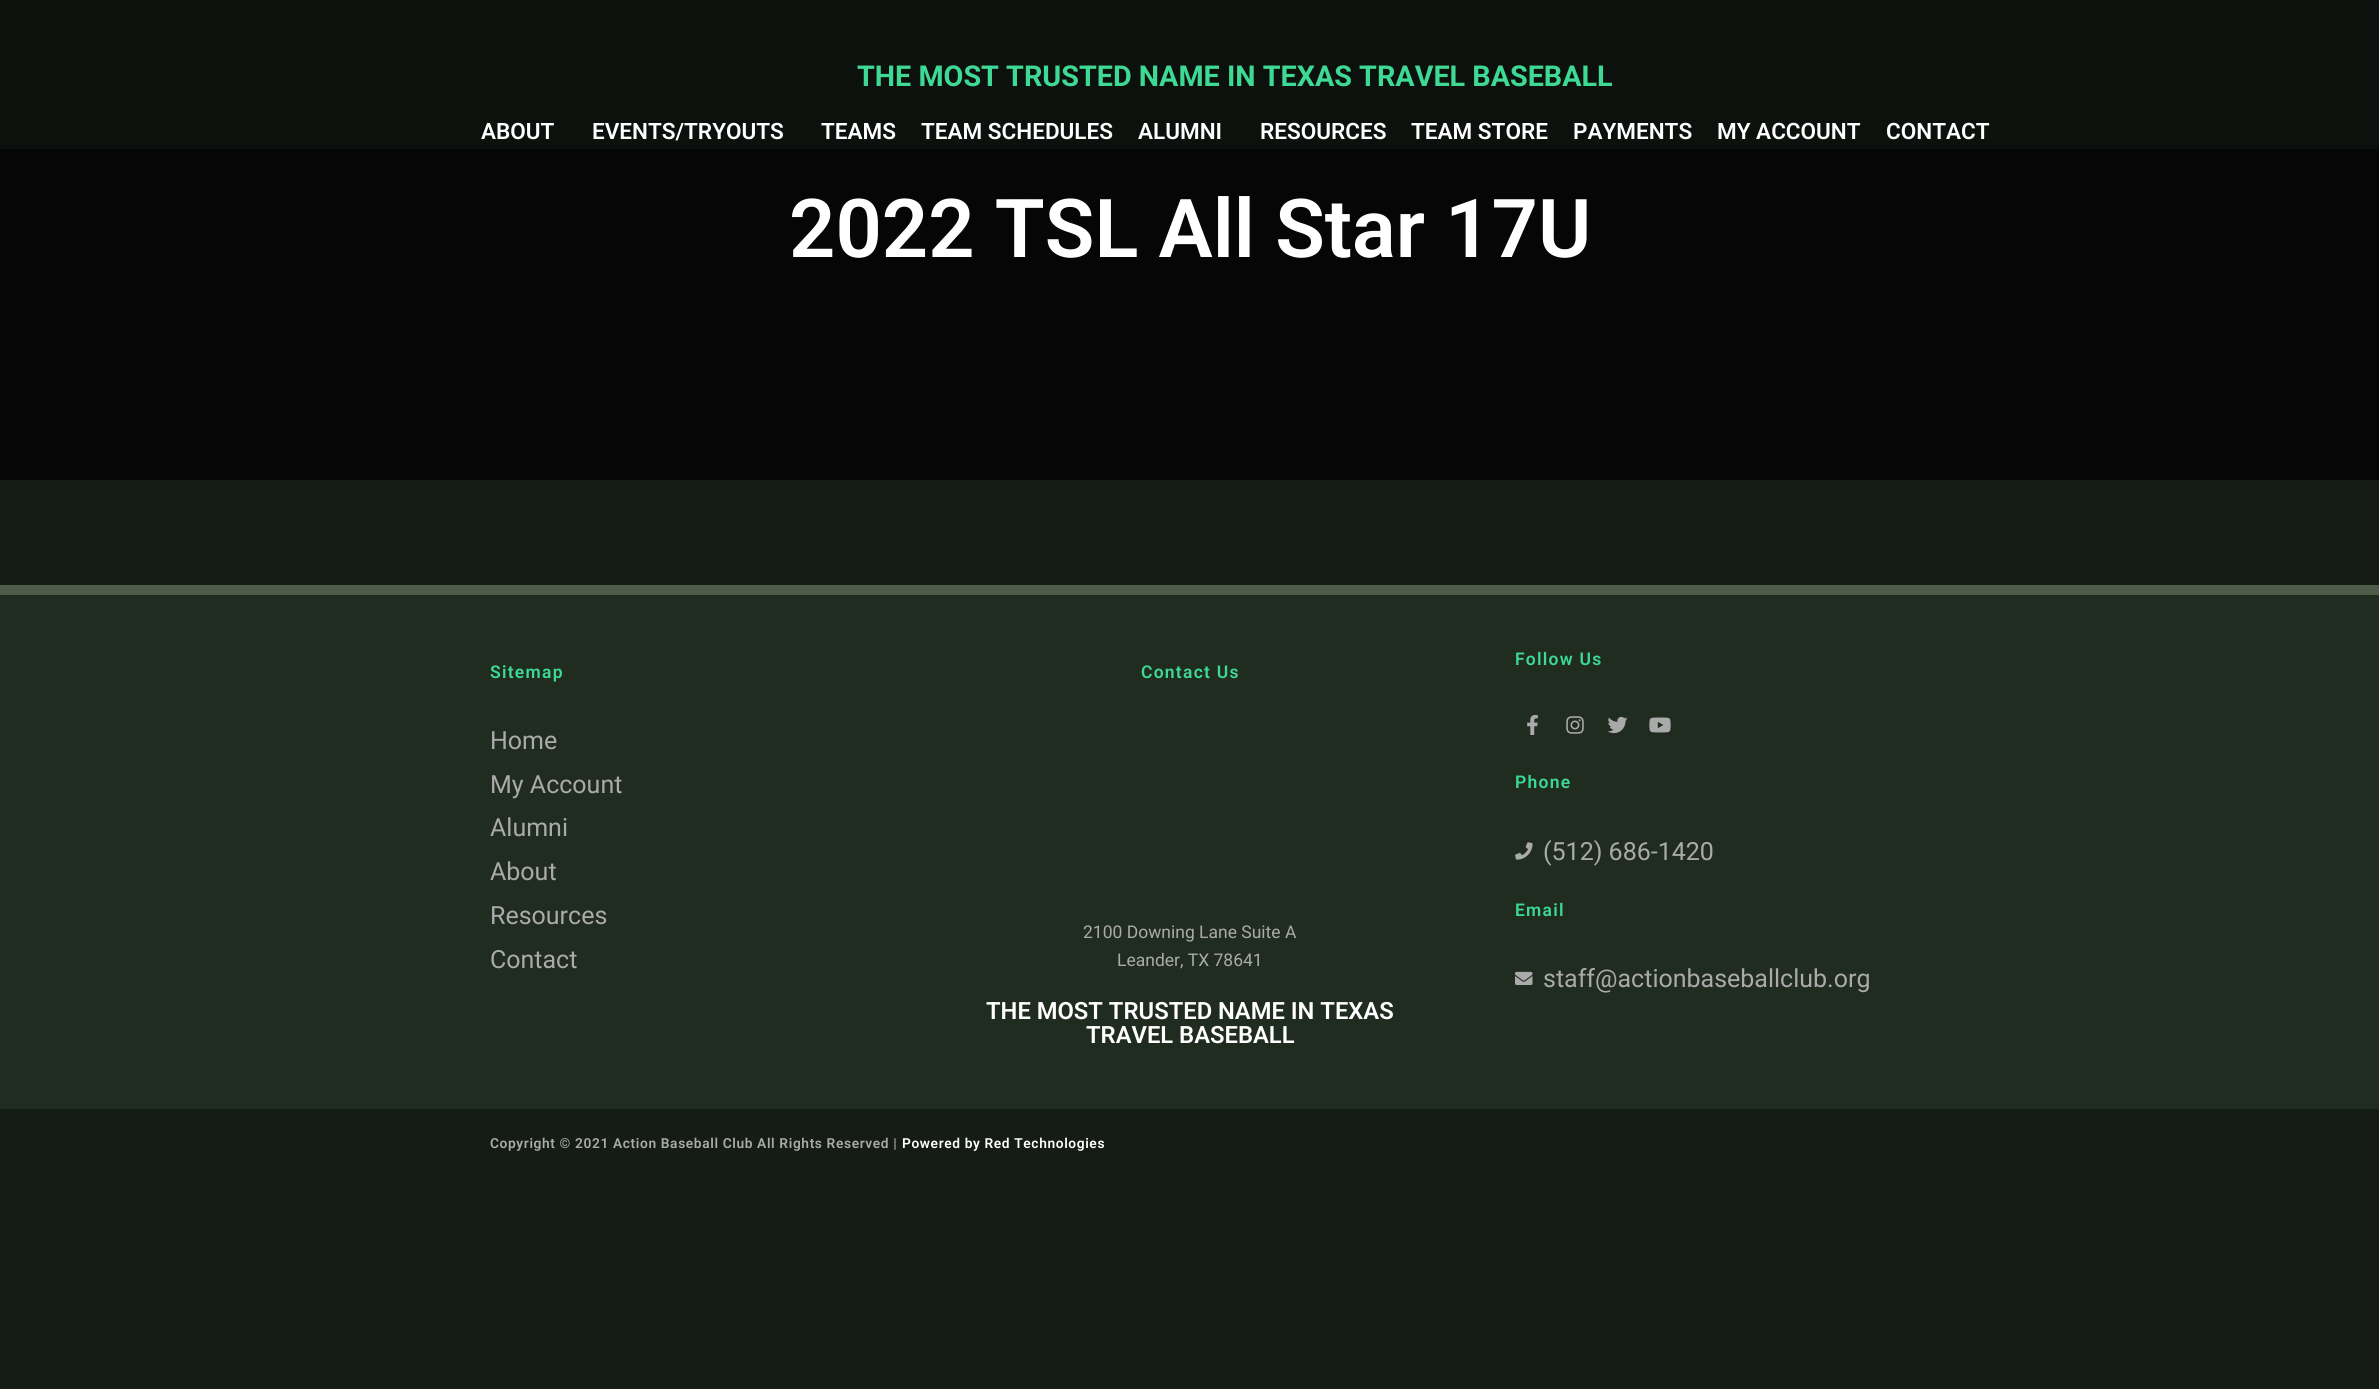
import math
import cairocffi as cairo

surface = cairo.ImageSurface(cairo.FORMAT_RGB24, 2379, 1389)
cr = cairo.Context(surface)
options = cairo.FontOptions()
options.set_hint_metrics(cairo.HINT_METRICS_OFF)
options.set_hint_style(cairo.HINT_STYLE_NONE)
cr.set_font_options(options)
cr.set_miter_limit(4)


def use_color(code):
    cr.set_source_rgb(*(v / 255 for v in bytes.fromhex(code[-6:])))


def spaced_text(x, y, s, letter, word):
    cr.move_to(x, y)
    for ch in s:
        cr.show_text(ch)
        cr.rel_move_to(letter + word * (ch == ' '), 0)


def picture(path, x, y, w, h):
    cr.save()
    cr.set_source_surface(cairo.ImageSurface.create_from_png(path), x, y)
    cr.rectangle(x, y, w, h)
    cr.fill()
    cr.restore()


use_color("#151c15")
cr.paint()
use_color("#0d110d")
cr.rectangle(0, 0, 2379, 149)
cr.fill()
cr.select_font_face("Roboto", cairo.FONT_SLANT_NORMAL, cairo.FONT_WEIGHT_BOLD)
cr.set_font_size(28.75)
use_color("#3dd995")
cr.move_to(857, 86)
cr.show_text("THE MOST TRUSTED NAME IN TEXAS TRAVEL BASEBALL")
cr.select_font_face("Roboto SemiBold")
cr.set_font_size(22.5)
use_color("#ffffff")
cr.move_to(481, 139)
cr.show_text("ABOUT")
cr.move_to(592, 139)
cr.show_text("EVENTS/TRYOUTS")
cr.move_to(821, 139)
cr.show_text("TEAMS")
cr.move_to(921, 139)
cr.show_text("TEAM SCHEDULES")
cr.move_to(1138, 139)
cr.show_text("ALUMNI")
cr.move_to(1260, 139)
cr.show_text("RESOURCES")
cr.move_to(1411, 139)
cr.show_text("TEAM STORE")
cr.move_to(1573, 139)
cr.show_text("PAYMENTS")
cr.move_to(1717, 139)
cr.show_text("MY ACCOUNT")
cr.move_to(1886, 139)
cr.show_text("CONTACT")
use_color("#050605")
cr.rectangle(0, 149, 2379, 331)
cr.fill()
cr.set_font_size(81.25)
use_color("#ffffff")
cr.move_to(789, 257)
cr.show_text("2022 TSL All Star 17U")
use_color("#202c20")
cr.rectangle(0, 595, 2379, 514)
cr.fill()
use_color("#4e5c49")
cr.rectangle(0, 585, 2379, 10)
cr.fill()
cr.set_font_size(17.5)
use_color("#3dd995")
spaced_text(490, 678, "Sitemap", 1.25, 0)
cr.select_font_face("Roboto")
cr.set_font_size(25)
use_color("#aaaaaa")
cr.move_to(490, 749)
cr.show_text("Home")
cr.move_to(490, 793)
cr.show_text("My Account")
cr.move_to(490, 836)
cr.show_text("Alumni")
cr.move_to(490, 880)
cr.show_text("About")
cr.move_to(490, 924)
cr.show_text("Resources")
cr.move_to(490, 968)
cr.show_text("Contact")
cr.select_font_face("Roboto SemiBold")
cr.set_font_size(17.5)
use_color("#3dd995")
spaced_text(1141, 678, "Contact Us", 1.25, 0)
cr.select_font_face("Roboto")
use_color("#aaaaaa")
cr.move_to(1083, 938)
cr.show_text("2100 Downing Lane Suite A")
cr.move_to(1117, 966)
cr.show_text("Leander, TX 78641")
cr.select_font_face("Roboto SemiBold")
cr.set_font_size(23.75)
use_color("#ffffff")
cr.move_to(986, 1019)
cr.show_text("THE MOST TRUSTED NAME IN TEXAS")
cr.move_to(1086, 1043)
cr.show_text("TRAVEL BASEBALL")
cr.set_font_size(17.5)
use_color("#3dd995")
spaced_text(1515, 665, "Follow Us", 1.25, 0)
picture("img1.png", 1527, 715, 11, 20)
picture("img2.png", 1566, 716, 18, 18)
picture("img3.png", 1607, 716, 21, 18)
picture("img4.png", 1649, 717, 22, 16)
spaced_text(1515, 788, "Phone", 1.25, 0)
picture("img5.png", 1515, 842, 18, 18)
cr.select_font_face("Roboto")
cr.set_font_size(25)
use_color("#aaaaaa")
cr.move_to(1543, 860)
cr.show_text("(512) 686-1420")
cr.select_font_face("Roboto SemiBold")
cr.set_font_size(17.5)
use_color("#3dd995")
spaced_text(1515, 916, "Email", 1.25, 0)
picture("img6.png", 1515, 971, 18, 14)
cr.select_font_face("Roboto")
cr.set_font_size(25)
use_color("#aaaaaa")
cr.move_to(1543, 987)
cr.show_text("staff@actionbaseballclub.org")
cr.select_font_face("Roboto SemiBold")
cr.set_font_size(13.75)
spaced_text(490, 1148, "Copyright © 2021 Action Baseball Club All Rights Reserved |", 0.62, 0)
use_color("#ffffff")
spaced_text(902, 1148, "Powered by Red Technologies", 0.62, 0)
surface.write_to_png("result.png")
